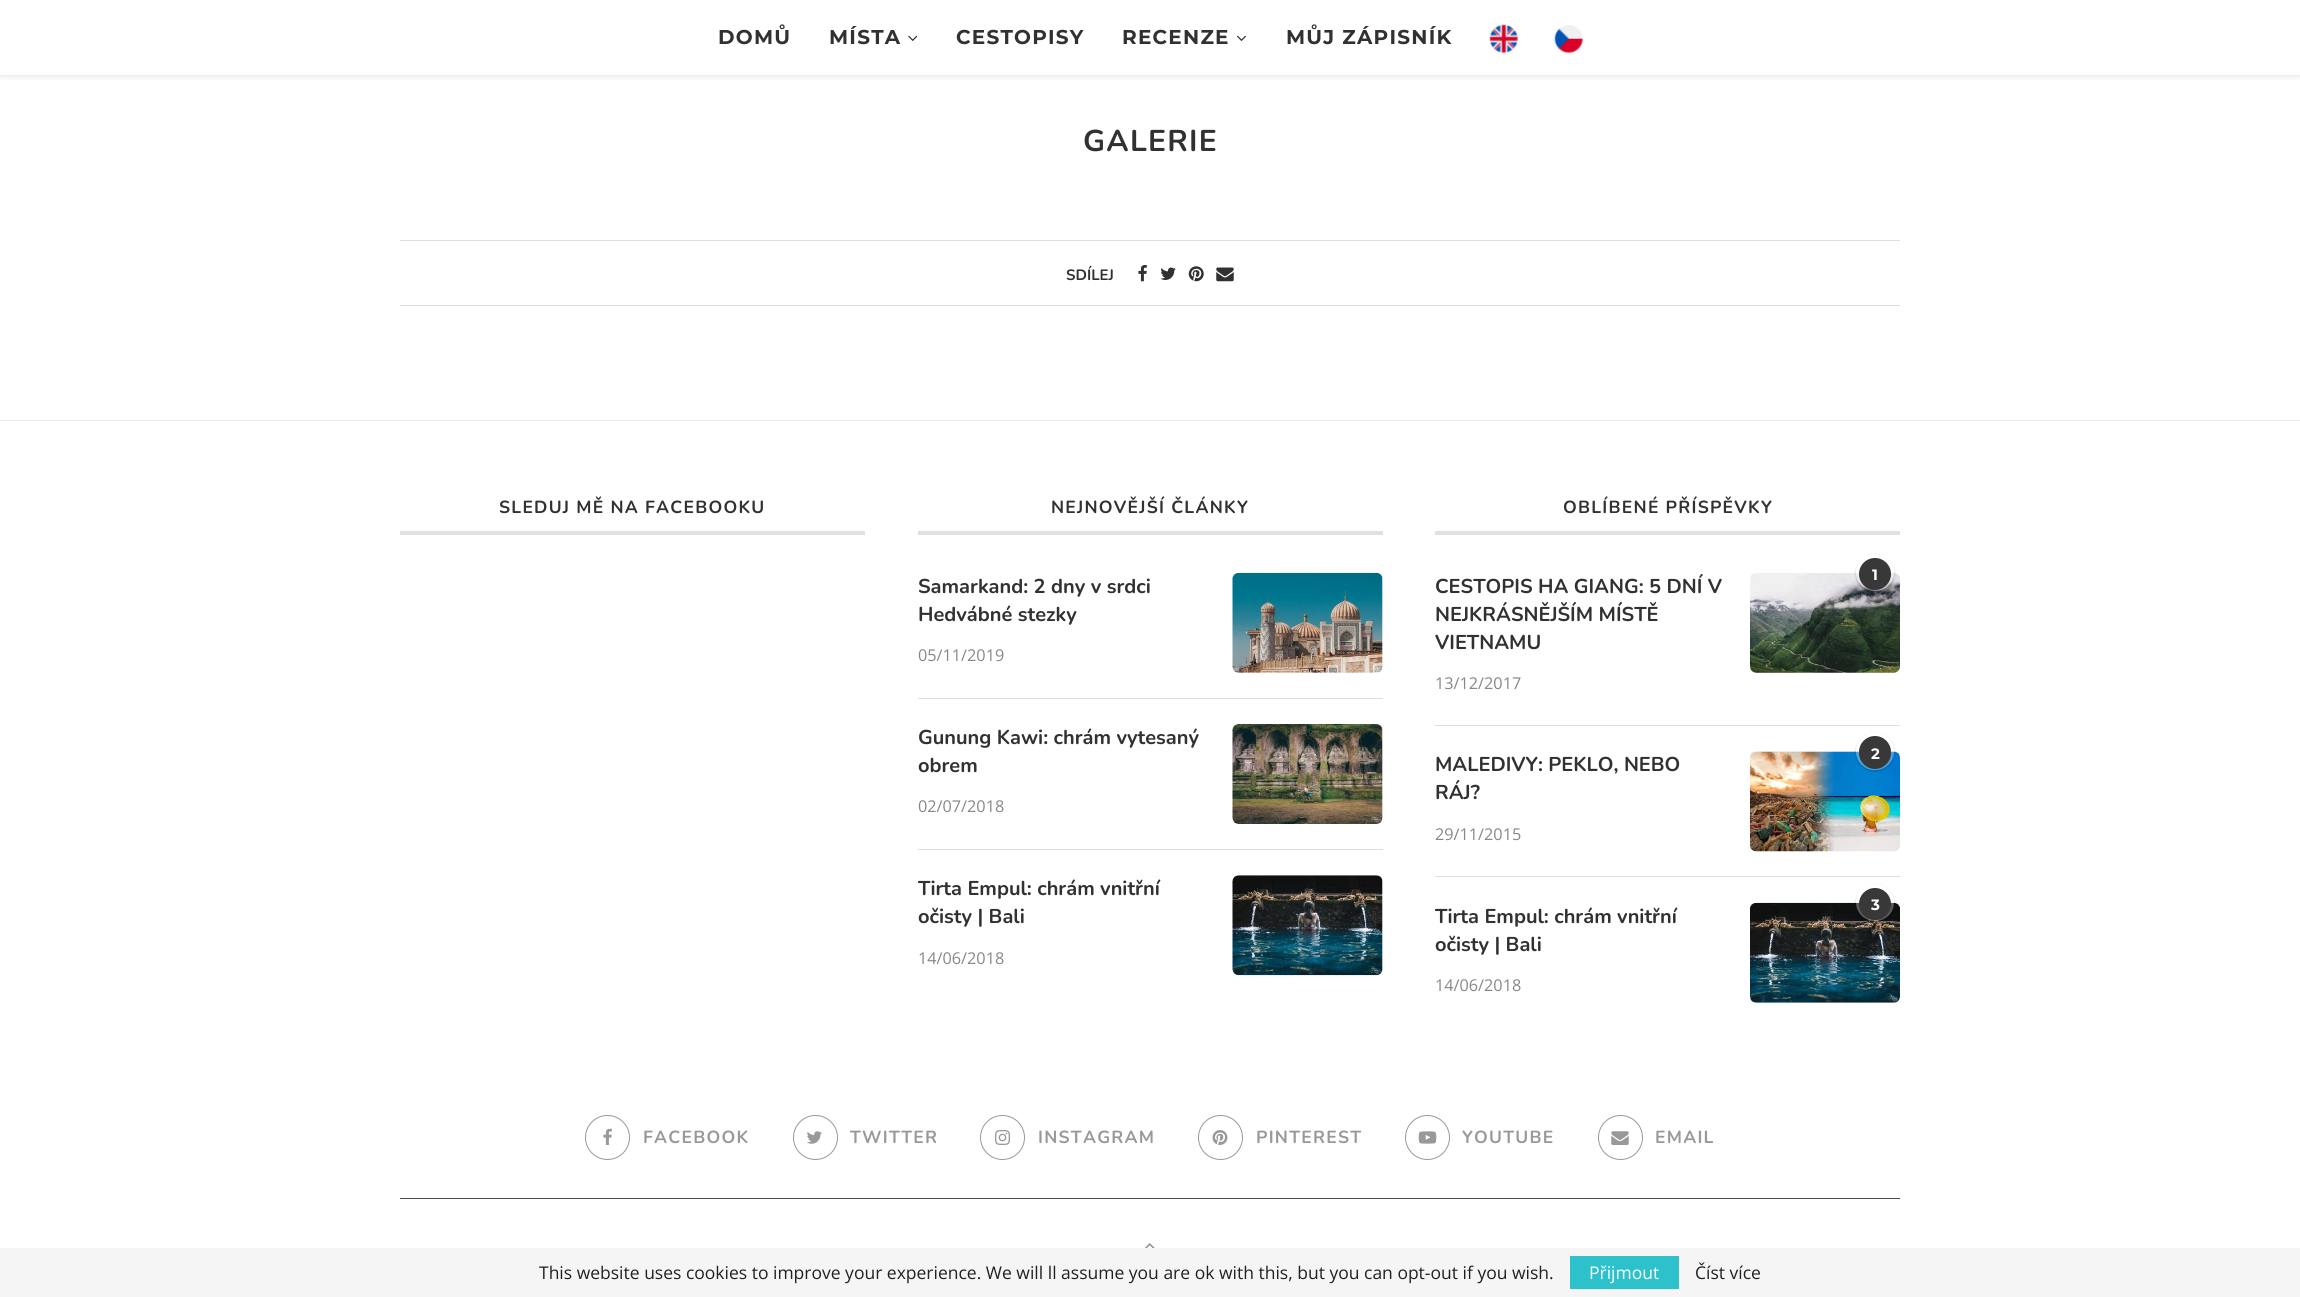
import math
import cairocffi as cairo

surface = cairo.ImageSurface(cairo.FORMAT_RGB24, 2300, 1297)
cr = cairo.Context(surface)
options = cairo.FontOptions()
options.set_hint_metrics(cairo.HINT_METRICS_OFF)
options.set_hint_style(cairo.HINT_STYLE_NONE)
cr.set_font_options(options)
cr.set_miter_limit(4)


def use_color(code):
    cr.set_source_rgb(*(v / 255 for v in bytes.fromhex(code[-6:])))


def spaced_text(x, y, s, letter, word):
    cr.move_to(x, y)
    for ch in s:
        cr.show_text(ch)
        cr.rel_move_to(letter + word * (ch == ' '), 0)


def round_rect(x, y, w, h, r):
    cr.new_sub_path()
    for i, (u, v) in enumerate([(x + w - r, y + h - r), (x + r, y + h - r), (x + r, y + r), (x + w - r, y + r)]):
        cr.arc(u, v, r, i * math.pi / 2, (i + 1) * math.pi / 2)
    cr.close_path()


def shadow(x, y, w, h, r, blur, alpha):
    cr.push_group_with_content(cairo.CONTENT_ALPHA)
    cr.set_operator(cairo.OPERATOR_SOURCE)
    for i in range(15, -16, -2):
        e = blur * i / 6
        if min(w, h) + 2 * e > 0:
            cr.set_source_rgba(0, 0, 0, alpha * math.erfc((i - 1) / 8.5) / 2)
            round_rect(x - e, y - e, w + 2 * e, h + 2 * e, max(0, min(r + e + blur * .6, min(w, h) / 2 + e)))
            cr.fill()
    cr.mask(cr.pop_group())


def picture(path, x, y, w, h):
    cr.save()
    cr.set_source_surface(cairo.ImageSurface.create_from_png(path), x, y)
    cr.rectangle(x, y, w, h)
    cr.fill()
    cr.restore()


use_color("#ffffff")
cr.paint()
cr.save()
cr.rectangle(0, 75, 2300, 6)
cr.clip()
use_color("#bebebe")
shadow(0, 1, 2300, 75, 0, 3, 0.46)
cr.restore()
cr.select_font_face("Montserrat", cairo.FONT_SLANT_NORMAL, cairo.FONT_WEIGHT_BOLD)
cr.set_font_size(20)
use_color("#313131")
spaced_text(718, 44, "DOMŮ", 1.25, 0)
spaced_text(829, 44, "MÍSTA", 1.25, 0)
picture("img1.png", 908, 35, 10, 6)
spaced_text(956, 44, "CESTOPISY", 1.25, 0)
spaced_text(1122, 44, "RECENZE", 1.25, 0)
picture("img2.png", 1237, 35, 9, 6)
spaced_text(1286, 44, "MŮJ ZÁPISNÍK", 1.25, 0)
picture("img3.png", 1489, 24, 29, 29)
picture("img4.png", 1554, 25, 29, 28)
cr.select_font_face("Nunito", cairo.FONT_SLANT_NORMAL, cairo.FONT_WEIGHT_BOLD)
cr.set_font_size(30)
spaced_text(1083, 151, "GALERIE", 1.25, 0)
use_color("#dedede")
cr.rectangle(400, 240, 1500, 1)
cr.fill()
cr.rectangle(400, 305, 1500, 1)
cr.fill()
cr.set_font_size(15)
use_color("#313131")
cr.move_to(1066, 280)
cr.show_text("SDÍLEJ")
picture("img5.png", 1138, 265, 9, 17)
picture("img6.png", 1160, 267, 16, 13)
picture("img7.png", 1188, 266, 16, 16)
picture("img8.png", 1216, 267, 18, 15)
use_color("#ececec")
cr.rectangle(0, 420, 2300, 1)
cr.fill()
use_color("#e0e0e0")
cr.rectangle(400, 531, 465, 4)
cr.fill()
cr.set_font_size(17.5)
use_color("#313131")
spaced_text(499, 513, "SLEDUJ MĚ NA FACEBOOKU", 1.25, 0)
use_color("#e0e0e0")
cr.rectangle(918, 531, 465, 4)
cr.fill()
use_color("#313131")
spaced_text(1051, 513, "NEJNOVĚJŠÍ ČLÁNKY", 1.25, 0)
use_color("#dedede")
cr.rectangle(918, 698, 465, 1)
cr.fill()
cr.set_font_size(20)
use_color("#313131")
cr.move_to(918, 593)
cr.show_text("Samarkand: 2 dny v srdci")
cr.move_to(918, 621)
cr.show_text("Hedvábné stezky")
cr.select_font_face("Open Sans")
cr.set_font_size(16.25)
use_color("#888888")
cr.move_to(918, 661)
cr.show_text("05/11/2019")
use_color("#f5f5f5")
round_rect(1233, 573, 150, 100, 6)
cr.fill()
picture("img9.png", 1232, 572, 151, 101)
use_color("#dedede")
cr.rectangle(918, 849, 465, 1)
cr.fill()
cr.select_font_face("Nunito", cairo.FONT_SLANT_NORMAL, cairo.FONT_WEIGHT_BOLD)
cr.set_font_size(20)
use_color("#313131")
cr.move_to(918, 744)
cr.show_text("Gunung Kawi: chrám vytesaný")
cr.move_to(918, 772)
cr.show_text("obrem")
cr.select_font_face("Open Sans")
cr.set_font_size(16.25)
use_color("#888888")
cr.move_to(918, 812)
cr.show_text("02/07/2018")
use_color("#f5f5f5")
round_rect(1233, 724, 150, 100, 6)
cr.fill()
picture("img10.png", 1232, 724, 151, 100)
cr.select_font_face("Nunito", cairo.FONT_SLANT_NORMAL, cairo.FONT_WEIGHT_BOLD)
cr.set_font_size(20)
use_color("#313131")
cr.move_to(918, 895)
cr.show_text("Tirta Empul: chrám vnitřní")
cr.move_to(918, 923)
cr.show_text("očisty | Bali")
cr.select_font_face("Open Sans")
cr.set_font_size(16.25)
use_color("#888888")
cr.move_to(918, 964)
cr.show_text("14/06/2018")
use_color("#f5f5f5")
round_rect(1233, 875, 150, 100, 6)
cr.fill()
picture("img11.png", 1232, 875, 151, 101)
use_color("#e0e0e0")
cr.rectangle(1435, 531, 465, 4)
cr.fill()
cr.select_font_face("Nunito", cairo.FONT_SLANT_NORMAL, cairo.FONT_WEIGHT_BOLD)
cr.set_font_size(17.5)
use_color("#313131")
spaced_text(1563, 513, "OBLÍBENÉ PŘÍSPĚVKY", 1.25, 0)
use_color("#dedede")
cr.rectangle(1435, 725, 465, 1)
cr.fill()
cr.set_font_size(20)
use_color("#313131")
cr.move_to(1435, 593)
cr.show_text("CESTOPIS HA GIANG: 5 DNÍ V")
cr.move_to(1435, 621)
cr.show_text("NEJKRÁSNĚJŠÍM MÍSTĚ")
cr.move_to(1435, 649)
cr.show_text("VIETNAMU")
cr.select_font_face("Open Sans")
cr.set_font_size(16.25)
use_color("#888888")
cr.move_to(1435, 689)
cr.show_text("13/12/2017")
use_color("#f5f5f5")
round_rect(1750, 573, 150, 100, 6)
cr.fill()
picture("img12.png", 1750, 573, 150, 100)
cr.save()
cr.set_fill_rule(cairo.FILL_RULE_EVEN_ODD)
cr.new_path()
cr.move_to(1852, 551)
cr.line_to(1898, 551)
cr.line_to(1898, 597)
cr.line_to(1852, 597)
cr.close_path()
cr.move_to(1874.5, 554)
cr.line_to(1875.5, 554)
cr.curve_to(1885.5, 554, 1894, 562.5, 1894, 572.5)
cr.curve_to(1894, 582.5, 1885.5, 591, 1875.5, 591)
cr.line_to(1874.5, 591)
cr.curve_to(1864.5, 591, 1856, 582.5, 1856, 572.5)
cr.curve_to(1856, 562.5, 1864.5, 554, 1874.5, 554)
cr.close_path()
cr.clip()
use_color("#000000")
shadow(1856, 555, 38, 38, 19, 1, 0.25)
cr.restore()
cr.set_source_rgba(1, 1, 1, 0.3)
round_rect(1856, 554, 38, 37, 18.5)
cr.fill()
use_color("#383838")
cr.arc(1875, 574, 16, 0, 2 * math.pi)
cr.fill()
cr.select_font_face("Montserrat", cairo.FONT_SLANT_NORMAL, cairo.FONT_WEIGHT_BOLD)
cr.set_font_size(15)
use_color("#ffffff")
cr.move_to(1872, 580)
cr.show_text("1")
use_color("#dedede")
cr.rectangle(1435, 876, 465, 1)
cr.fill()
use_color("#f5f5f5")
round_rect(1750, 751, 150, 100, 6)
cr.fill()
picture("img13.png", 1750, 751, 150, 101)
cr.save()
cr.set_fill_rule(cairo.FILL_RULE_EVEN_ODD)
cr.new_path()
cr.move_to(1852, 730)
cr.line_to(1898, 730)
cr.line_to(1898, 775)
cr.line_to(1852, 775)
cr.close_path()
cr.move_to(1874.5, 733)
cr.line_to(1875.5, 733)
cr.curve_to(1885.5, 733, 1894, 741.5, 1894, 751.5)
cr.curve_to(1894, 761.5, 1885.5, 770, 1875.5, 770)
cr.line_to(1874.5, 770)
cr.curve_to(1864.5, 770, 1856, 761.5, 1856, 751.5)
cr.curve_to(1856, 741.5, 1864.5, 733, 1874.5, 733)
cr.close_path()
cr.clip()
use_color("#000000")
shadow(1856, 734, 38, 37, 18.5, 1, 0.25)
cr.restore()
cr.set_source_rgba(1, 1, 1, 0.3)
round_rect(1856, 733, 38, 37, 18.5)
cr.fill()
use_color("#383838")
round_rect(1859, 736, 32, 33, 16)
cr.fill()
use_color("#ffffff")
cr.move_to(1871, 759)
cr.show_text("2")
cr.select_font_face("Nunito", cairo.FONT_SLANT_NORMAL, cairo.FONT_WEIGHT_BOLD)
cr.set_font_size(20)
use_color("#313131")
cr.move_to(1435, 771)
cr.show_text("MALEDIVY: PEKLO, NEBO")
cr.move_to(1435, 799)
cr.show_text("RÁJ?")
cr.select_font_face("Open Sans")
cr.set_font_size(16.25)
use_color("#888888")
cr.move_to(1435, 840)
cr.show_text("29/11/2015")
use_color("#f5f5f5")
round_rect(1750, 903, 150, 100, 6)
cr.fill()
picture("img14.png", 1750, 902, 150, 101)
cr.save()
cr.set_fill_rule(cairo.FILL_RULE_EVEN_ODD)
cr.new_path()
cr.move_to(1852, 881)
cr.line_to(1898, 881)
cr.line_to(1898, 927)
cr.line_to(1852, 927)
cr.close_path()
cr.move_to(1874.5, 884)
cr.line_to(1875.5, 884)
cr.curve_to(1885.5, 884, 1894, 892.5, 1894, 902.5)
cr.curve_to(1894, 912.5, 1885.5, 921, 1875.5, 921)
cr.line_to(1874.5, 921)
cr.curve_to(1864.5, 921, 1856, 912.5, 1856, 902.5)
cr.curve_to(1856, 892.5, 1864.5, 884, 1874.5, 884)
cr.close_path()
cr.clip()
use_color("#000000")
shadow(1856, 885, 38, 38, 19, 1, 0.25)
cr.restore()
cr.set_source_rgba(1, 1, 1, 0.3)
round_rect(1856, 884, 38, 37, 18.5)
cr.fill()
use_color("#383838")
cr.arc(1875, 904, 16, 0, 2 * math.pi)
cr.fill()
cr.select_font_face("Montserrat", cairo.FONT_SLANT_NORMAL, cairo.FONT_WEIGHT_BOLD)
cr.set_font_size(15)
use_color("#ffffff")
cr.move_to(1871, 910)
cr.show_text("3")
cr.select_font_face("Nunito", cairo.FONT_SLANT_NORMAL, cairo.FONT_WEIGHT_BOLD)
cr.set_font_size(20)
use_color("#313131")
cr.move_to(1435, 923)
cr.show_text("Tirta Empul: chrám vnitřní")
cr.move_to(1435, 951)
cr.show_text("očisty | Bali")
cr.select_font_face("Open Sans")
cr.set_font_size(16.25)
use_color("#888888")
cr.move_to(1435, 991)
cr.show_text("14/06/2018")
use_color("#4a4a4a")
cr.rectangle(400, 1198, 1500, 1)
cr.fill()
cr.arc(607.5, 1137.5, 22, 0, 2 * math.pi)
use_color("#999999")
cr.set_line_width(1)
cr.stroke()
picture("img15.png", 603, 1128, 9, 17)
cr.select_font_face("Nunito", cairo.FONT_SLANT_NORMAL, cairo.FONT_WEIGHT_BOLD)
cr.set_font_size(17.5)
spaced_text(643, 1143, "FACEBOOK", 1.25, 0)
cr.new_path()
cr.arc(815.5, 1137.5, 22, 0, 2 * math.pi)
cr.stroke()
picture("img16.png", 807, 1131, 15, 13)
spaced_text(850, 1143, "TWITTER", 1.25, 0)
cr.new_path()
cr.arc(1002.5, 1137.5, 22, 0, 2 * math.pi)
cr.stroke()
picture("img17.png", 995, 1130, 15, 15)
spaced_text(1038, 1143, "INSTAGRAM", 1.25, 0)
cr.new_path()
cr.arc(1220.5, 1137.5, 22, 0, 2 * math.pi)
cr.stroke()
picture("img18.png", 1212, 1130, 16, 15)
spaced_text(1256, 1143, "PINTEREST", 1.25, 0)
cr.new_path()
cr.arc(1427.5, 1137.5, 22, 0, 2 * math.pi)
cr.stroke()
picture("img19.png", 1418, 1131, 19, 13)
spaced_text(1462, 1143, "YOUTUBE", 1.25, 0)
cr.new_path()
cr.arc(1620.5, 1137.5, 22, 0, 2 * math.pi)
cr.stroke()
picture("img20.png", 1611, 1131, 18, 14)
spaced_text(1655, 1143, "EMAIL", 1.25, 0)
picture("img21.png", 1144, 1243, 11, 5)
use_color("#f5f5f5")
cr.rectangle(0, 1248, 2300, 49)
cr.fill()
cr.select_font_face("Open Sans")
use_color("#212121")
cr.move_to(539, 1279)
cr.show_text("This website uses cookies to improve your experience. We will ll assume you are ok with this, but you can opt-out if you wish.")
use_color("#2dc2cb")
cr.rectangle(1570, 1256, 109, 33)
cr.fill()
use_color("#ffffff")
cr.move_to(1589, 1279)
cr.show_text("Přijmout")
use_color("#212121")
cr.move_to(1695, 1279)
cr.show_text("Číst více")
surface.write_to_png("result.png")
